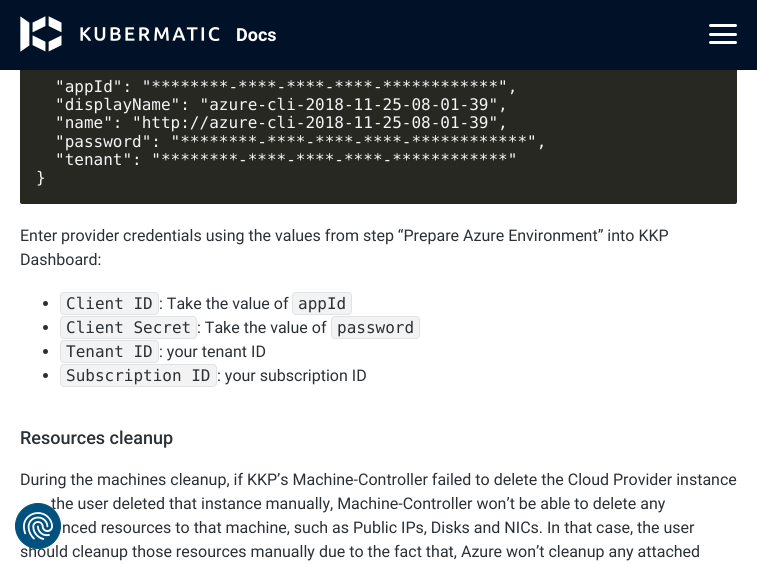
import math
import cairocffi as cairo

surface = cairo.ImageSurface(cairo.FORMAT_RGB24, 757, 564)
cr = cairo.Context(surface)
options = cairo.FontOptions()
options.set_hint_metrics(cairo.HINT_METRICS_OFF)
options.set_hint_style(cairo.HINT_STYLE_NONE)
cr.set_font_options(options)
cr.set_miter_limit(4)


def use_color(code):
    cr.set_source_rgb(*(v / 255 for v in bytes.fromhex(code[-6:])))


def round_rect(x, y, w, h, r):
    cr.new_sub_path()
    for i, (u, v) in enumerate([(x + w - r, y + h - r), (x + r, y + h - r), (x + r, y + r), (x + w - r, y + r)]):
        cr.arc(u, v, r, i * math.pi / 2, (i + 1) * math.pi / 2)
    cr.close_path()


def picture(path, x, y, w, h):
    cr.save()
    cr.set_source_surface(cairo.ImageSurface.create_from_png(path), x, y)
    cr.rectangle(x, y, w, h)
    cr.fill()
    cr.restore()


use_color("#ffffff")
cr.paint()
use_color("#272822")
round_rect(20, 43, 717, 161, 2)
cr.fill()
use_color("#001128")
cr.rectangle(0, 0, 757, 70)
cr.fill()
picture("img1.png", 20, 16, 200, 36)
cr.select_font_face("Roboto", cairo.FONT_SLANT_NORMAL, cairo.FONT_WEIGHT_BOLD)
cr.set_font_size(18)
use_color("#ffffff")
cr.move_to(236, 41)
cr.show_text("Docs")
round_rect(709, 24, 28, 3, 1.5)
cr.fill()
round_rect(709, 33, 28, 3, 1.5)
cr.fill()
round_rect(709, 41, 28, 3, 1.5)
cr.fill()
cr.select_font_face("DejaVu Sans Mono")
cr.set_font_size(16)
use_color("#f5f5f5")
cr.move_to(55, 92)
cr.show_text("\"appId\": \"********-****-****-****-************\",")
cr.move_to(55, 110)
cr.show_text("\"displayName\": \"azure-cli-2018-11-25-08-01-39\",")
cr.move_to(55, 128)
cr.show_text("\"name\": \"http://azure-cli-2018-11-25-08-01-39\",")
cr.move_to(55, 147)
cr.show_text("\"password\": \"********-****-****-****-************\",")
cr.move_to(55, 165)
cr.show_text("\"tenant\": \"********-****-****-****-************\"")
cr.move_to(36, 183)
cr.show_text("}")
cr.select_font_face("Roboto")
use_color("#2b3035")
cr.move_to(20, 241)
cr.show_text("Enter provider credentials using the values from step “Prepare Azure Environment” into KKP")
cr.move_to(20, 265)
cr.show_text("Dashboard:")
cr.new_path()
cr.arc(45.5, 303.5, 2.5, 0, 2 * math.pi)
cr.fill()
use_color("#f3f3f3")
round_rect(60.5, 292.5, 98, 22, 3.5)
cr.fill_preserve()
use_color("#e0e3e5")
cr.set_line_width(1)
cr.stroke()
cr.select_font_face("DejaVu Sans Mono")
use_color("#2b3035")
cr.move_to(66, 309)
cr.show_text("Client ID")
cr.select_font_face("Roboto")
cr.move_to(159, 309)
cr.show_text(": Take the value of")
use_color("#f3f3f3")
round_rect(292.5, 292.5, 59, 22, 3.5)
cr.fill_preserve()
use_color("#e0e3e5")
cr.stroke()
cr.select_font_face("DejaVu Sans Mono")
use_color("#2b3035")
cr.move_to(298, 309)
cr.show_text("appId")
cr.new_path()
cr.arc(45.5, 327.5, 2.5, 0, 2 * math.pi)
cr.fill()
use_color("#f3f3f3")
round_rect(60.5, 316.5, 136, 22, 3.5)
cr.fill_preserve()
use_color("#e0e3e5")
cr.stroke()
use_color("#2b3035")
cr.move_to(66, 333)
cr.show_text("Client Secret")
cr.select_font_face("Roboto")
cr.move_to(197, 333)
cr.show_text(": Take the value of")
use_color("#f3f3f3")
round_rect(331.5, 316.5, 88, 22, 3.5)
cr.fill_preserve()
use_color("#e0e3e5")
cr.stroke()
cr.select_font_face("DejaVu Sans Mono")
use_color("#2b3035")
cr.move_to(337, 333)
cr.show_text("password")
cr.new_path()
cr.arc(45.5, 351.5, 2.5, 0, 2 * math.pi)
cr.fill()
use_color("#f3f3f3")
round_rect(60.5, 340.5, 98, 22, 3.5)
cr.fill_preserve()
use_color("#e0e3e5")
cr.stroke()
use_color("#2b3035")
cr.move_to(66, 357)
cr.show_text("Tenant ID")
cr.select_font_face("Roboto")
cr.move_to(159, 357)
cr.show_text(": your tenant ID")
cr.new_path()
cr.arc(45.5, 375.5, 2.5, 0, 2 * math.pi)
cr.fill()
use_color("#f3f3f3")
round_rect(60.5, 364.5, 156, 22, 3.5)
cr.fill_preserve()
use_color("#e0e3e5")
cr.stroke()
cr.select_font_face("DejaVu Sans Mono")
use_color("#2b3035")
cr.move_to(66, 381)
cr.show_text("Subscription ID")
cr.select_font_face("Roboto")
cr.move_to(217, 381)
cr.show_text(": your subscription ID")
cr.select_font_face("Roboto Medium")
cr.set_font_size(18)
cr.move_to(20, 444)
cr.show_text("Resources cleanup")
cr.select_font_face("Roboto")
cr.set_font_size(16)
cr.move_to(20, 485)
cr.show_text("During the machines cleanup, if KKP’s Machine-Controller failed to delete the Cloud Provider instance")
cr.move_to(51, 509)
cr.show_text("the user deleted that instance manually, Machine-Controller won’t be able to delete any")
cr.move_to(62, 533)
cr.show_text("nced resources to that machine, such as Public IPs, Disks and NICs. In that case, the user")
cr.move_to(20, 557)
cr.show_text("should cleanup those resources manually due to the fact that, Azure won’t cleanup any attached")
use_color("#00517d")
cr.new_path()
cr.arc(38, 526, 22.5, 0, 2 * math.pi)
cr.fill_preserve()
cr.stroke()
picture("img2.png", 23, 512, 30, 28)
surface.write_to_png("result.png")
